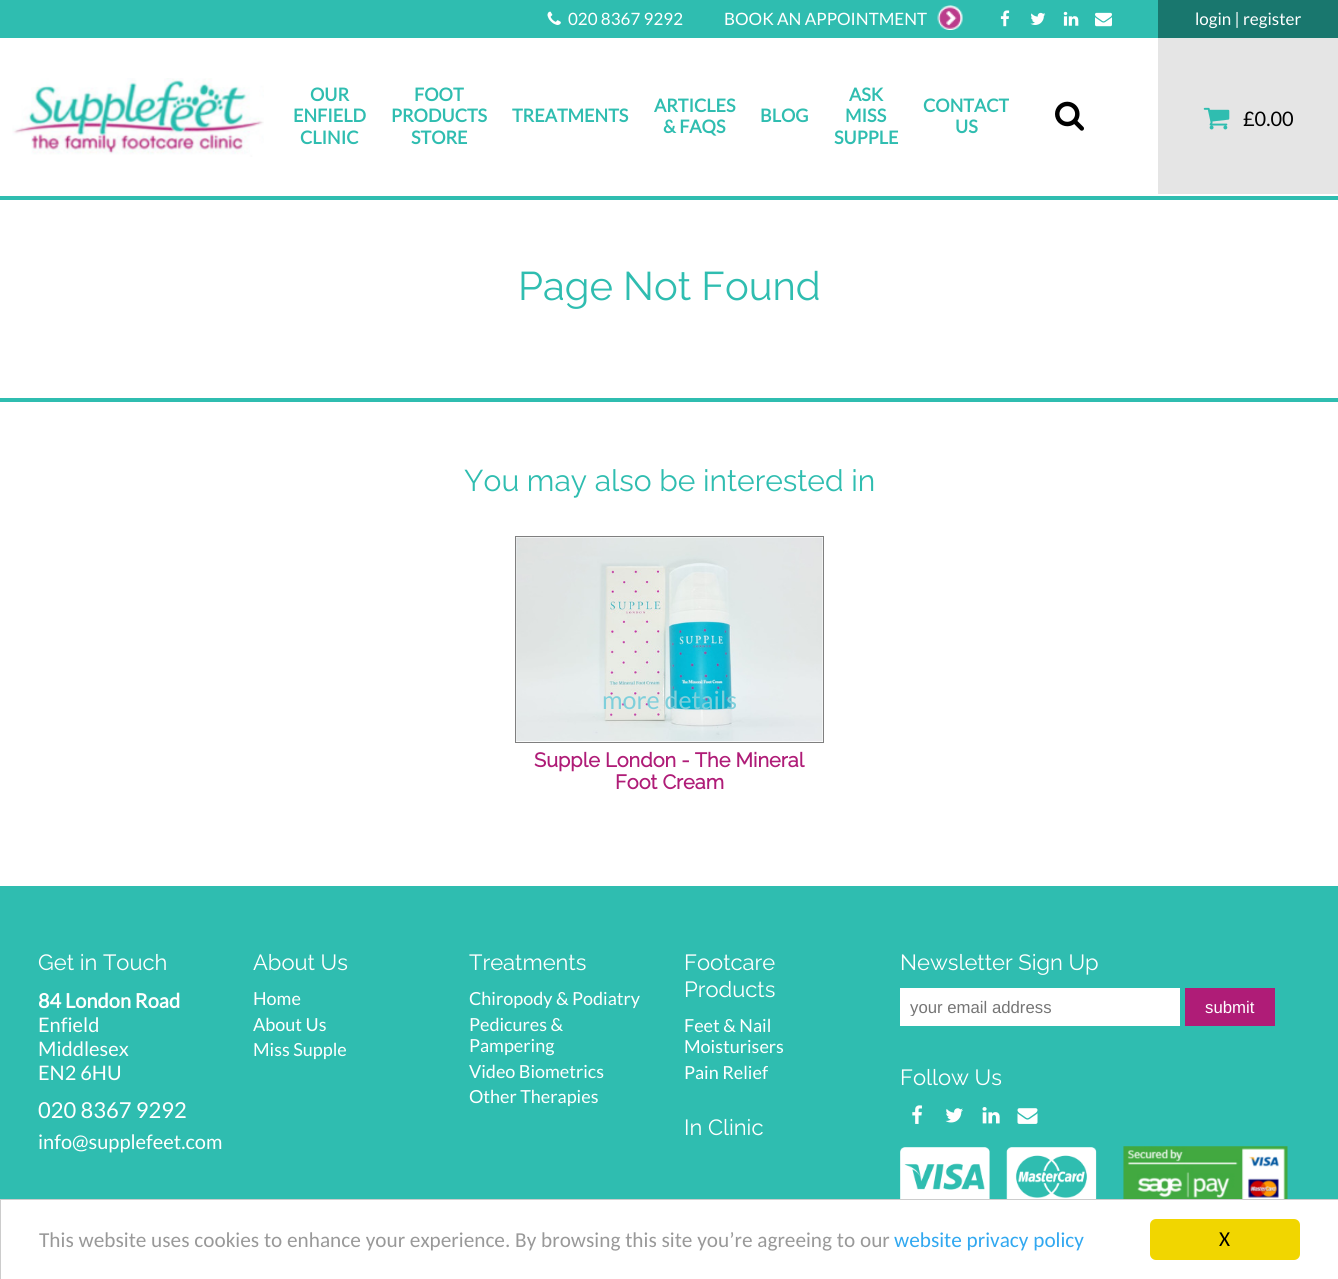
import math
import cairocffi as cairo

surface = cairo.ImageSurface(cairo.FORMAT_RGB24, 1338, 1279)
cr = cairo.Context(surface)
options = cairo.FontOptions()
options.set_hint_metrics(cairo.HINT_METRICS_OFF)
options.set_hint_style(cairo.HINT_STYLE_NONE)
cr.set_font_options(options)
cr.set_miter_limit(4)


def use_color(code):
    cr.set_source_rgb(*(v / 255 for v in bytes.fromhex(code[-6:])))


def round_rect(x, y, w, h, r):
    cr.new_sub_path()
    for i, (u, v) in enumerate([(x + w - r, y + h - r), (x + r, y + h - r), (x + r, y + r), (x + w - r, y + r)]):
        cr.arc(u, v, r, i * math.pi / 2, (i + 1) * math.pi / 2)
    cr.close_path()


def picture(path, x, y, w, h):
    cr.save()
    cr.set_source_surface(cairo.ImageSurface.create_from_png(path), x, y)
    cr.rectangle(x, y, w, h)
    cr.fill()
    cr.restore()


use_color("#ffffff")
cr.paint()
use_color("#2fbdb0")
cr.rectangle(0, 0, 1158, 38)
cr.fill()
picture("img1.png", 547, 11, 14, 14)
cr.select_font_face("Lato")
cr.set_font_size(17)
use_color("#ffffff")
cr.move_to(568, 25)
cr.show_text("020 8367 9292")
cr.move_to(724, 25)
cr.show_text("BOOK AN APPOINTMENT")
picture("img2.png", 937, 5, 26, 25)
picture("img3.png", 1000, 10, 10, 17)
picture("img4.png", 1030, 12, 16, 13)
picture("img5.png", 1063, 11, 16, 15)
picture("img6.png", 1095, 12, 17, 15)
use_color("#19776e")
cr.rectangle(1158, 0, 180, 38)
cr.fill()
use_color("#ffffff")
cr.move_to(1195, 25)
cr.show_text("login | register")
picture("img7.png", 12, 78, 252, 79)
cr.select_font_face("Lato", cairo.FONT_SLANT_NORMAL, cairo.FONT_WEIGHT_BOLD)
cr.set_font_size(18)
use_color("#2fbdb0")
cr.move_to(310, 101)
cr.show_text("OUR")
cr.move_to(293, 122)
cr.show_text("ENFIELD")
cr.move_to(300, 144)
cr.show_text("CLINIC")
cr.move_to(414, 101)
cr.show_text("FOOT")
cr.move_to(391, 122)
cr.show_text("PRODUCTS")
cr.move_to(411, 144)
cr.show_text("STORE")
cr.move_to(512, 122)
cr.show_text("TREATMENTS")
cr.move_to(654, 112)
cr.show_text("ARTICLES")
cr.move_to(663, 133)
cr.show_text("& FAQS")
cr.move_to(760, 122)
cr.show_text("BLOG")
cr.move_to(849, 101)
cr.show_text("ASK")
cr.move_to(845, 122)
cr.show_text("MISS")
cr.move_to(834, 144)
cr.show_text("SUPPLE")
cr.move_to(923, 112)
cr.show_text("CONTACT")
cr.move_to(955, 133)
cr.show_text("US")
picture("img8.png", 1055, 101, 29, 30)
use_color("#e5e5e5")
cr.rectangle(1158, 38, 180, 156)
cr.fill()
picture("img9.png", 1203, 107, 27, 23)
cr.select_font_face("Lato")
cr.set_font_size(20)
use_color("#000000")
cr.move_to(1243, 126)
cr.show_text("£0.00")
use_color("#2fbdb0")
cr.rectangle(0, 196, 1338, 4)
cr.fill()
cr.select_font_face("Raleway Thin")
cr.set_font_size(40)
cr.move_to(518, 300)
cr.show_text("Page Not Found")
cr.rectangle(0, 398, 1338, 4)
cr.fill()
cr.set_font_size(30)
cr.move_to(464, 491)
cr.show_text("You may also be interested in")
cr.rectangle(515.5, 536.5, 308, 206)
use_color("#7f7f7f")
cr.set_line_width(1)
cr.stroke()
picture("img10.png", 516, 537, 307, 205)
cr.select_font_face("Lato")
cr.set_font_size(25)
use_color("#7fcfdb")
cr.move_to(602, 709)
cr.show_text("more details")
cr.select_font_face("Raleway", cairo.FONT_SLANT_NORMAL, cairo.FONT_WEIGHT_BOLD)
cr.set_font_size(20)
use_color("#af1c77")
cr.move_to(534, 767)
cr.show_text("Supple London - The Mineral")
cr.move_to(615, 789)
cr.show_text("Foot Cream")
use_color("#2fbdb0")
cr.rectangle(0, 886, 1338, 313)
cr.fill()
cr.select_font_face("Raleway Thin")
cr.set_font_size(22)
use_color("#ffffff")
cr.move_to(38, 970)
cr.show_text("Get in Touch")
cr.select_font_face("Lato", cairo.FONT_SLANT_NORMAL, cairo.FONT_WEIGHT_BOLD)
cr.set_font_size(20)
cr.move_to(38, 1008)
cr.show_text("84 London Road")
cr.select_font_face("Lato")
cr.move_to(38, 1032)
cr.show_text("Enfield")
cr.move_to(38, 1056)
cr.show_text("Middlesex")
cr.move_to(38, 1080)
cr.show_text("EN2 6HU")
cr.set_font_size(22)
cr.move_to(38, 1118)
cr.show_text("020 8367 9292")
cr.set_font_size(20)
cr.move_to(38, 1149)
cr.show_text("info@supplefeet.com")
cr.select_font_face("Raleway Thin")
cr.set_font_size(22)
cr.move_to(253, 970)
cr.show_text("About Us")
cr.select_font_face("Lato")
cr.set_font_size(18)
cr.move_to(253, 1005)
cr.show_text("Home")
cr.move_to(253, 1031)
cr.show_text("About Us")
cr.move_to(253, 1056)
cr.show_text("Miss Supple")
cr.select_font_face("Raleway Thin")
cr.set_font_size(22)
cr.move_to(469, 970)
cr.show_text("Treatments")
cr.select_font_face("Lato")
cr.set_font_size(18)
cr.move_to(469, 1005)
cr.show_text("Chiropody & Podiatry")
cr.move_to(469, 1031)
cr.show_text("Pedicures &")
cr.move_to(469, 1052)
cr.show_text("Pampering")
cr.move_to(469, 1078)
cr.show_text("Video Biometrics")
cr.move_to(469, 1103)
cr.show_text("Other Therapies")
cr.select_font_face("Raleway Thin")
cr.set_font_size(22)
cr.move_to(684, 970)
cr.show_text("Footcare")
cr.move_to(684, 997)
cr.show_text("Products")
cr.select_font_face("Lato")
cr.set_font_size(18)
cr.move_to(684, 1032)
cr.show_text("Feet & Nail")
cr.move_to(684, 1053)
cr.show_text("Moisturisers")
cr.move_to(684, 1079)
cr.show_text("Pain Relief")
cr.select_font_face("Raleway Thin")
cr.set_font_size(22)
cr.move_to(684, 1135)
cr.show_text("In Clinic")
cr.move_to(900, 970)
cr.show_text("Newsletter Sign Up")
cr.rectangle(900, 988, 280, 38)
cr.fill()
cr.save()
cr.rectangle(910, 998, 260, 18)
cr.clip()
cr.select_font_face("Liberation Sans")
cr.set_font_size(16.75)
use_color("#757575")
cr.move_to(910, 1013)
cr.show_text("your email address")
cr.restore()
use_color("#af1c77")
cr.rectangle(1185, 988, 90, 38)
cr.fill()
cr.select_font_face("Liberation Sans")
cr.set_font_size(16.75)
use_color("#ffffff")
cr.move_to(1205, 1013)
cr.show_text("submit")
cr.select_font_face("Raleway Thin")
cr.set_font_size(22)
cr.move_to(900, 1085)
cr.show_text("Follow Us")
picture("img11.png", 912, 1105, 10, 19)
picture("img12.png", 945, 1108, 18, 15)
picture("img13.png", 982, 1107, 18, 17)
picture("img14.png", 1017, 1108, 21, 16)
picture("img15.png", 900, 1146, 388, 53)
cr.rectangle(0.5, 1199.5, 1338, 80)
use_color("#cccccc")
cr.stroke()
cr.select_font_face("Carlito")
cr.set_font_size(21.25)
use_color("#999999")
cr.move_to(39, 1247)
cr.show_text("This website uses cookies to enhance your experience. By browsing this site you’re agreeing to our")
use_color("#31a8f0")
cr.move_to(894, 1247)
cr.show_text("website privacy policy")
use_color("#f1d600")
round_rect(1150, 1219, 150, 41, 6)
cr.fill()
use_color("#000000")
cr.move_to(1219, 1246)
cr.show_text("X")
surface.write_to_png("result.png")
